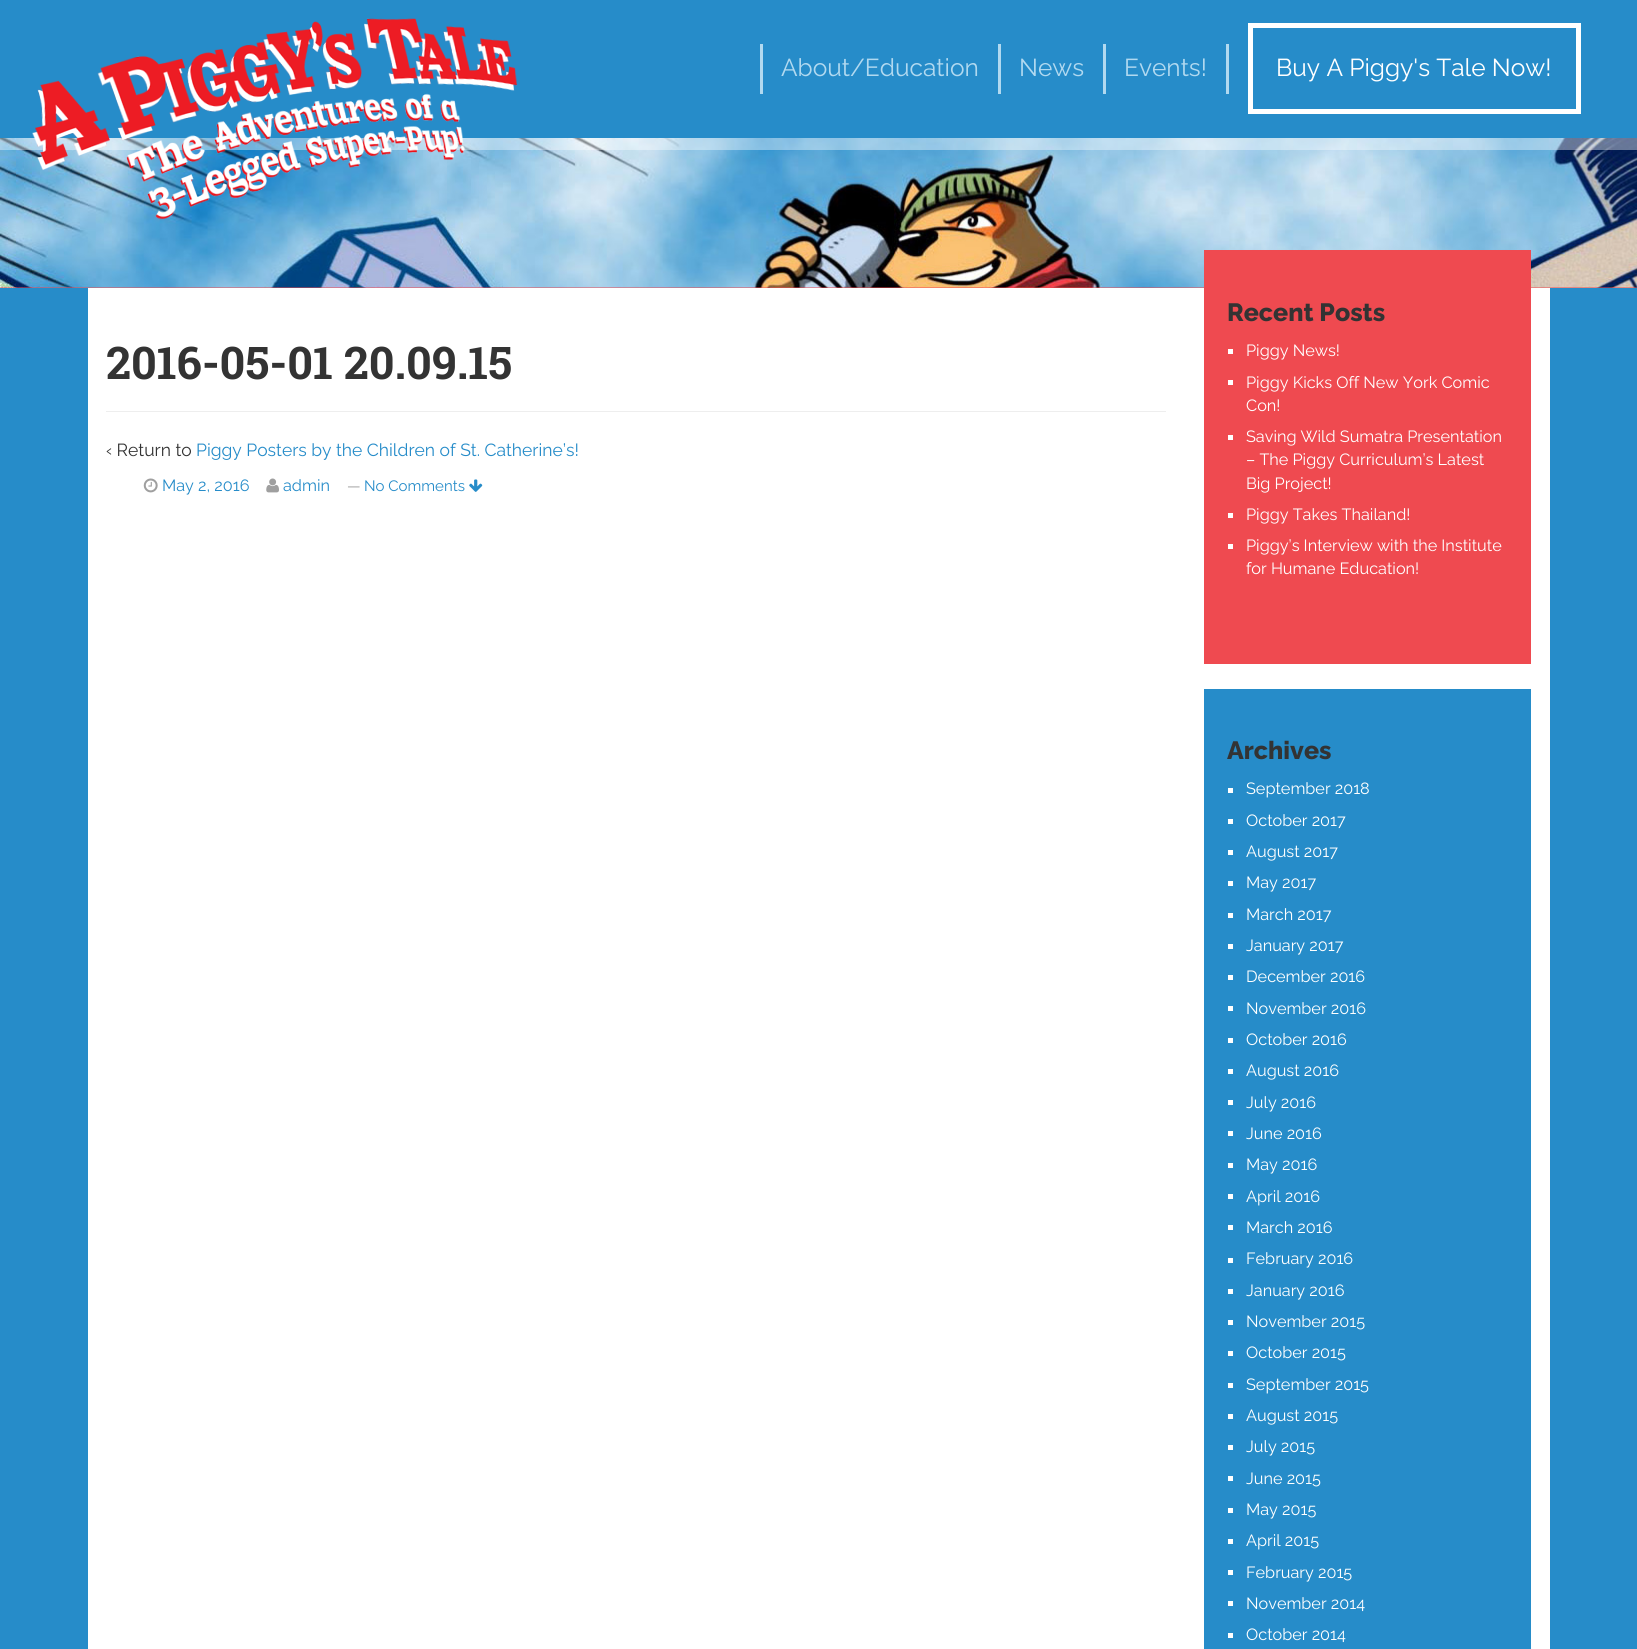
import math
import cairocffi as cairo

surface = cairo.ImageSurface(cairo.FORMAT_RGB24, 1637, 1649)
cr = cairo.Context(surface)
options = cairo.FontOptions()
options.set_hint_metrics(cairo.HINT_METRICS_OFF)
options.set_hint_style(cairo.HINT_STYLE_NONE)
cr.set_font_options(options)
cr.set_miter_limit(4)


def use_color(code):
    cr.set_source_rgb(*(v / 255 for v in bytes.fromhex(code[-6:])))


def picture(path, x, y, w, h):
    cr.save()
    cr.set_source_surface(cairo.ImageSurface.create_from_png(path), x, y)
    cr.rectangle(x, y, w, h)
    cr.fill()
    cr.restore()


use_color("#268cc9")
cr.paint()
use_color("#ef4a50")
cr.rectangle(0, 287, 1637, 1)
cr.fill()
picture("img2.png", 0, 138, 1637, 150)
cr.set_source_rgba(1, 1, 1, 0.4)
cr.new_path()
cr.move_to(0, 138)
cr.line_to(0, 150)
cr.line_to(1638, 150)
cr.line_to(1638, 13)
cr.line_to(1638, 138)
cr.close_path()
cr.fill()
picture("img1.png", 32, 18, 485, 202)
use_color("#b1d9f0")
cr.rectangle(998, 44, 3, 50)
cr.fill()
cr.rectangle(760, 44, 3, 50)
cr.fill()
cr.select_font_face("Raleway")
cr.set_font_size(24.5)
cr.move_to(781, 76)
cr.show_text("About/Education")
cr.rectangle(1103, 44, 3, 50)
cr.fill()
cr.move_to(1019, 76)
cr.show_text("News")
cr.rectangle(1226, 44, 3, 50)
cr.fill()
cr.move_to(1124, 76)
cr.show_text("Events!")
cr.rectangle(1250.5, 25.5, 328, 86)
use_color("#ffffff")
cr.set_line_width(5)
cr.stroke()
cr.move_to(1276, 76)
cr.show_text("Buy A Piggy's Tale Now!")
cr.rectangle(88, 288, 1462, 1361)
cr.fill()
use_color("#eeeeee")
cr.rectangle(106, 411, 1060, 1)
cr.fill()
cr.select_font_face("Roboto Slab", cairo.FONT_SLANT_NORMAL, cairo.FONT_WEIGHT_BOLD)
cr.set_font_size(45)
use_color("#333333")
cr.move_to(106, 379)
cr.show_text("2016-05-01 20.09.15")
cr.select_font_face("Raleway")
cr.set_font_size(17.5)
cr.move_to(106, 456)
cr.show_text("‹ Return to")
use_color("#268cc9")
cr.move_to(196, 456)
cr.show_text("Piggy Posters by the Children of St. Catherine’s!")
picture("img3.png", 143, 478, 15, 15)
cr.set_font_size(16.25)
cr.move_to(162, 491)
cr.show_text("May 2, 2016")
picture("img4.png", 266, 478, 13, 15)
cr.move_to(283, 491)
cr.show_text("admin")
cr.set_font_size(15)
use_color("#9f9f9f")
cr.move_to(347, 491)
cr.show_text("—")
use_color("#268cc9")
cr.move_to(364, 491)
cr.show_text("No Comments")
picture("img5.png", 469, 479, 14, 13)
use_color("#ef4a50")
cr.rectangle(1204, 250, 327, 414)
cr.fill()
cr.select_font_face("Raleway ExtraBold")
cr.set_font_size(25)
use_color("#333333")
cr.move_to(1227, 321)
cr.show_text("Recent Posts")
use_color("#ffffff")
cr.rectangle(1228, 349, 5, 5)
cr.fill()
cr.select_font_face("Raleway")
cr.set_font_size(16.25)
cr.move_to(1246, 356)
cr.show_text("Piggy News!")
cr.rectangle(1228, 380, 5, 5)
cr.fill()
cr.move_to(1246, 388)
cr.show_text("Piggy Kicks Off New York Comic")
cr.move_to(1246, 411)
cr.show_text("Con!")
cr.rectangle(1228, 435, 5, 5)
cr.fill()
cr.move_to(1246, 442)
cr.show_text("Saving Wild Sumatra Presentation")
cr.move_to(1246, 465)
cr.show_text("– The Piggy Curriculum’s Latest")
cr.move_to(1246, 489)
cr.show_text("Big Project!")
cr.rectangle(1228, 513, 5, 5)
cr.fill()
cr.move_to(1246, 520)
cr.show_text("Piggy Takes Thailand!")
cr.rectangle(1228, 544, 5, 5)
cr.fill()
cr.move_to(1246, 551)
cr.show_text("Piggy’s Interview with the Institute")
cr.move_to(1246, 574)
cr.show_text("for Humane Education!")
use_color("#268cc9")
cr.rectangle(1204, 689, 327, 960)
cr.fill()
cr.select_font_face("Raleway ExtraBold")
cr.set_font_size(25)
use_color("#333333")
cr.move_to(1227, 759)
cr.show_text("Archives")
use_color("#ffffff")
cr.rectangle(1228, 788, 5, 5)
cr.fill()
cr.select_font_face("Raleway")
cr.set_font_size(16.25)
cr.move_to(1246, 794)
cr.show_text("September 2018")
cr.rectangle(1228, 819, 5, 5)
cr.fill()
cr.move_to(1246, 826)
cr.show_text("October 2017")
cr.rectangle(1228, 850, 5, 5)
cr.fill()
cr.move_to(1246, 857)
cr.show_text("August 2017")
cr.rectangle(1228, 881, 5, 5)
cr.fill()
cr.move_to(1246, 888)
cr.show_text("May 2017")
cr.rectangle(1228, 913, 5, 5)
cr.fill()
cr.move_to(1246, 920)
cr.show_text("March 2017")
cr.rectangle(1228, 944, 5, 5)
cr.fill()
cr.move_to(1246, 951)
cr.show_text("January 2017")
cr.rectangle(1228, 975, 5, 5)
cr.fill()
cr.move_to(1246, 982)
cr.show_text("December 2016")
cr.rectangle(1228, 1006, 5, 5)
cr.fill()
cr.move_to(1246, 1014)
cr.show_text("November 2016")
cr.rectangle(1228, 1038, 5, 5)
cr.fill()
cr.move_to(1246, 1045)
cr.show_text("October 2016")
cr.rectangle(1228, 1069, 5, 5)
cr.fill()
cr.move_to(1246, 1076)
cr.show_text("August 2016")
cr.rectangle(1228, 1100, 5, 5)
cr.fill()
cr.move_to(1246, 1108)
cr.show_text("July 2016")
cr.rectangle(1228, 1131, 5, 5)
cr.fill()
cr.move_to(1246, 1139)
cr.show_text("June 2016")
cr.rectangle(1228, 1163, 5, 5)
cr.fill()
cr.move_to(1246, 1170)
cr.show_text("May 2016")
cr.rectangle(1228, 1194, 5, 5)
cr.fill()
cr.move_to(1246, 1202)
cr.show_text("April 2016")
cr.rectangle(1228, 1225, 5, 5)
cr.fill()
cr.move_to(1246, 1233)
cr.show_text("March 2016")
cr.rectangle(1228, 1258, 5, 5)
cr.fill()
cr.move_to(1246, 1264)
cr.show_text("February 2016")
cr.rectangle(1228, 1289, 5, 5)
cr.fill()
cr.move_to(1246, 1296)
cr.show_text("January 2016")
cr.rectangle(1228, 1320, 5, 5)
cr.fill()
cr.move_to(1246, 1327)
cr.show_text("November 2015")
cr.rectangle(1228, 1351, 5, 5)
cr.fill()
cr.move_to(1246, 1358)
cr.show_text("October 2015")
cr.rectangle(1228, 1383, 5, 5)
cr.fill()
cr.move_to(1246, 1390)
cr.show_text("September 2015")
cr.rectangle(1228, 1414, 5, 5)
cr.fill()
cr.move_to(1246, 1421)
cr.show_text("August 2015")
cr.rectangle(1228, 1445, 5, 5)
cr.fill()
cr.move_to(1246, 1452)
cr.show_text("July 2015")
cr.rectangle(1228, 1476, 5, 5)
cr.fill()
cr.move_to(1246, 1484)
cr.show_text("June 2015")
cr.rectangle(1228, 1508, 5, 5)
cr.fill()
cr.move_to(1246, 1515)
cr.show_text("May 2015")
cr.rectangle(1228, 1539, 5, 5)
cr.fill()
cr.move_to(1246, 1546)
cr.show_text("April 2015")
cr.rectangle(1228, 1570, 5, 5)
cr.fill()
cr.move_to(1246, 1578)
cr.show_text("February 2015")
cr.rectangle(1228, 1601, 5, 5)
cr.fill()
cr.move_to(1246, 1609)
cr.show_text("November 2014")
cr.rectangle(1228, 1633, 5, 5)
cr.fill()
cr.move_to(1246, 1640)
cr.show_text("October 2014")
surface.write_to_png("result.png")
